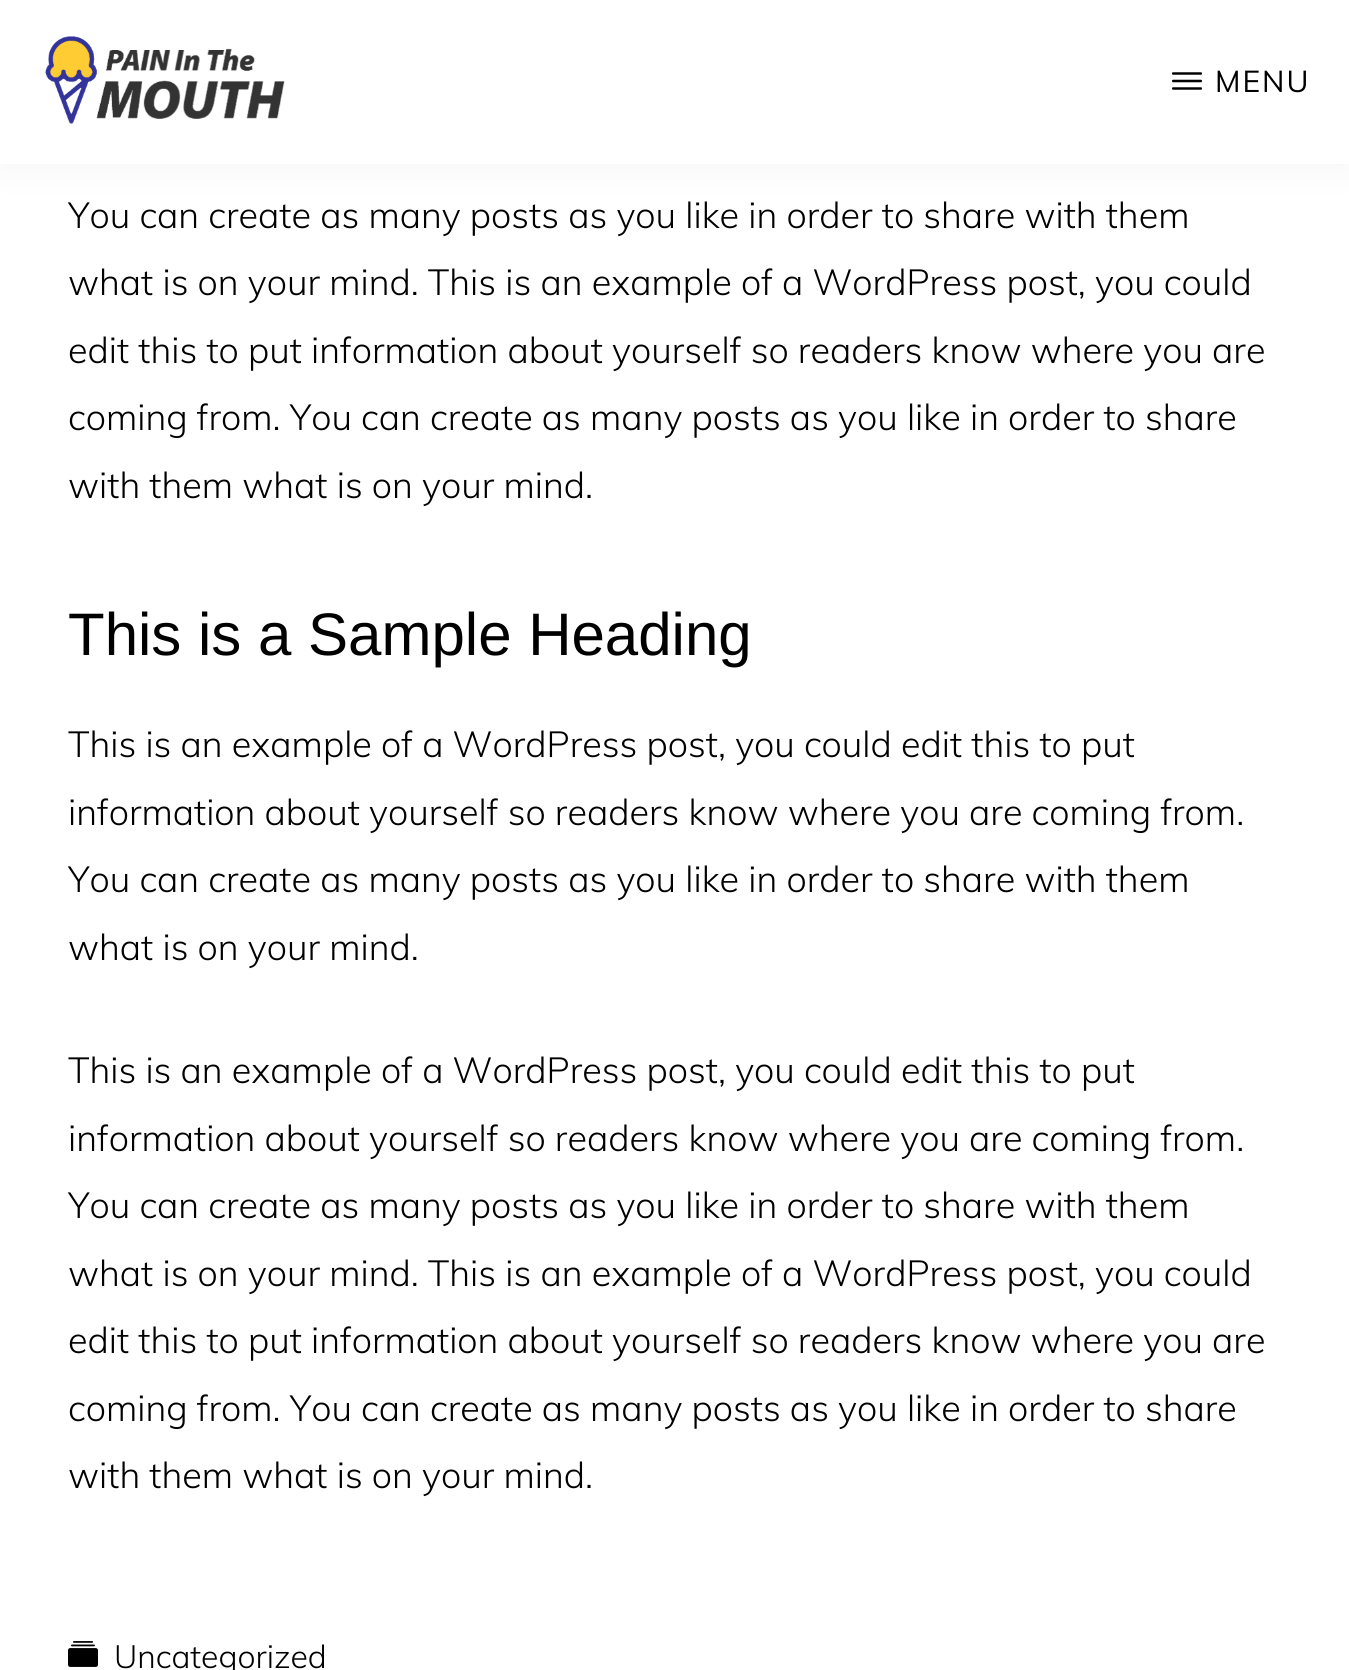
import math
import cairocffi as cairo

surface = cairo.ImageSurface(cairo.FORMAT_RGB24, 1349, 1670)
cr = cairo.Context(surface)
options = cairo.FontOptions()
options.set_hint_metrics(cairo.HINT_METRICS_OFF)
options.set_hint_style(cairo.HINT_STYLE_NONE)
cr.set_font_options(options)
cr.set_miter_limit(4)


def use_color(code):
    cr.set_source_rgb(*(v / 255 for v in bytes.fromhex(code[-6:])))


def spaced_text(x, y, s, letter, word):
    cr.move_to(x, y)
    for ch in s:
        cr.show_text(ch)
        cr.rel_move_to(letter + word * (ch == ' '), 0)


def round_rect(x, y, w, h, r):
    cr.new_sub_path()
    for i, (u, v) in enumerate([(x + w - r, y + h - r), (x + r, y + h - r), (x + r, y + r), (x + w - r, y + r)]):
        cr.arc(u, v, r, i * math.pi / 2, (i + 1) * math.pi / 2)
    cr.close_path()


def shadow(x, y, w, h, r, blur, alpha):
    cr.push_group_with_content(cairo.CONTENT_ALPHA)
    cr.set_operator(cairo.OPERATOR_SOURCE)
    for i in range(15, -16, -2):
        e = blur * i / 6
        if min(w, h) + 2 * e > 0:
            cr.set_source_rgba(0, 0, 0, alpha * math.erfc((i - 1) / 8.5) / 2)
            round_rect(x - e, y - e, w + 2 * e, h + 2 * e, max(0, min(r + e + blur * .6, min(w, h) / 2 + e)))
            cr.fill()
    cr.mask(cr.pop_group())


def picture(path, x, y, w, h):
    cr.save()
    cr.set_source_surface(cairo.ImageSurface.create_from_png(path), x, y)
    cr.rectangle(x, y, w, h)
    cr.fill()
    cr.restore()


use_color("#ffffff")
cr.paint()
use_color("#000000")
shadow(0, 0, 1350, 164, 0, 20, 0.05)
use_color("#ffffff")
cr.rectangle(0, 0, 1349, 164)
cr.fill()
picture("img1.png", 45, 36, 240, 88)
picture("img2.png", 1172, 72, 30, 18)
cr.select_font_face("Muli")
cr.set_font_size(30)
use_color("#000000")
spaced_text(1215, 92, "MENU", 2, 0)
cr.select_font_face("Muli Light")
cr.set_font_size(36)
cr.move_to(68, 228)
cr.show_text("You can create as many posts as you like in order to share with them")
cr.move_to(68, 295)
cr.show_text("what is on your mind. This is an example of a WordPress post, you could")
cr.move_to(68, 363)
cr.show_text("edit this to put information about yourself so readers know where you are")
cr.move_to(68, 430)
cr.show_text("coming from. You can create as many posts as you like in order to share")
cr.move_to(68, 498)
cr.show_text("with them what is on your mind.")
cr.select_font_face("Liberation Sans")
cr.set_font_size(60)
cr.move_to(68, 655)
cr.show_text("This is a Sample Heading")
cr.select_font_face("Muli Light")
cr.set_font_size(36)
cr.move_to(68, 757)
cr.show_text("This is an example of a WordPress post, you could edit this to put")
cr.move_to(68, 825)
cr.show_text("information about yourself so readers know where you are coming from.")
cr.move_to(68, 892)
cr.show_text("You can create as many posts as you like in order to share with them")
cr.move_to(68, 960)
cr.show_text("what is on your mind.")
cr.move_to(68, 1083)
cr.show_text("This is an example of a WordPress post, you could edit this to put")
cr.move_to(68, 1151)
cr.show_text("information about yourself so readers know where you are coming from.")
cr.move_to(68, 1218)
cr.show_text("You can create as many posts as you like in order to share with them")
cr.move_to(68, 1286)
cr.show_text("what is on your mind. This is an example of a WordPress post, you could")
cr.move_to(68, 1353)
cr.show_text("edit this to put information about yourself so readers know where you are")
cr.move_to(68, 1421)
cr.show_text("coming from. You can create as many posts as you like in order to share")
cr.move_to(68, 1488)
cr.show_text("with them what is on your mind.")
picture("img3.png", 68, 1641, 30, 26)
cr.set_font_size(32)
cr.move_to(114, 1668)
cr.show_text("Uncategorized")
surface.write_to_png("result.png")
